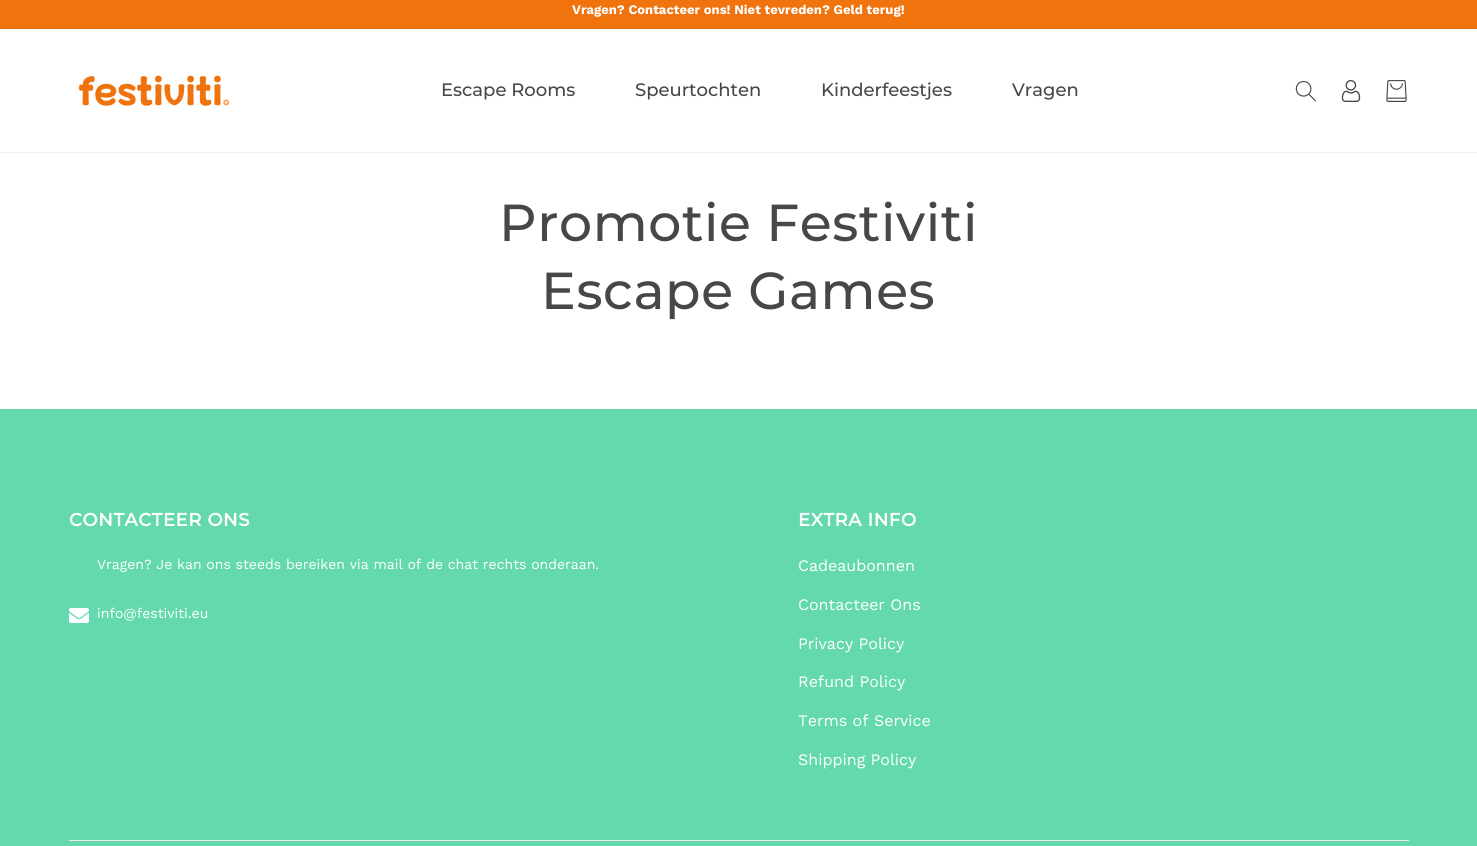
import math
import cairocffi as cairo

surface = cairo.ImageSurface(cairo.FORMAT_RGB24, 1477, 846)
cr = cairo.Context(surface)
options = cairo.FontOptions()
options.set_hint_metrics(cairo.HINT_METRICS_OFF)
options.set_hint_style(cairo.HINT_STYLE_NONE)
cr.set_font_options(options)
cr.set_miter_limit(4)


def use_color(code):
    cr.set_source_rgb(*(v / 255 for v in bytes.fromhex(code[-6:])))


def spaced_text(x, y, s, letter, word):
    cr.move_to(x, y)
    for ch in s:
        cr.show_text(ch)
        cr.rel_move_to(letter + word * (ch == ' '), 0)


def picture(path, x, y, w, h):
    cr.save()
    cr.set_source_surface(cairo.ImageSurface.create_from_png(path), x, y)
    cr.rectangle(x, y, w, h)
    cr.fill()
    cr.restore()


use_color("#ffffff")
cr.paint()
use_color("#f0730d")
cr.rectangle(0, 0, 1477, 28)
cr.fill()
use_color("#e26f12")
cr.rectangle(0, 28, 1477, 1)
cr.fill()
cr.select_font_face("Work Sans", cairo.FONT_SLANT_NORMAL, cairo.FONT_WEIGHT_BOLD)
cr.set_font_size(13)
use_color("#ffffff")
cr.move_to(572, 14)
cr.show_text("Vragen? Contacteer ons! Niet tevreden? Geld terug!")
use_color("#f0f0f0")
cr.rectangle(0, 152, 1477, 1)
cr.fill()
picture("img1.png", 78, 75, 152, 31)
cr.select_font_face("Montserrat Medium")
cr.set_font_size(18)
use_color("#474747")
cr.move_to(441, 96)
cr.show_text("Escape Rooms")
cr.move_to(635, 96)
cr.show_text("Speurtochten")
cr.move_to(821, 96)
cr.show_text("Kinderfeestjes")
cr.move_to(1012, 96)
cr.show_text("Vragen")
picture("img2.png", 1295, 80, 21, 22)
picture("img3.png", 1341, 80, 20, 22)
picture("img4.png", 1386, 80, 21, 22)
cr.set_font_size(52)
spaced_text(499, 241, "Promotie Festiviti", 0.6, 0)
spaced_text(541, 309, "Escape Games", 0.6, 0)
use_color("#63d9ad")
cr.rectangle(0, 409, 1477, 437)
cr.fill()
cr.select_font_face("Montserrat", cairo.FONT_SLANT_NORMAL, cairo.FONT_WEIGHT_BOLD)
cr.set_font_size(18)
use_color("#ffffff")
spaced_text(69, 526, "CONTACTEER ONS", 0.6, 0)
cr.select_font_face("Work Sans")
cr.set_font_size(14)
cr.move_to(97, 569)
cr.show_text("Vragen? Je kan ons steeds bereiken via mail of de chat rechts onderaan.")
picture("img5.png", 69, 608, 20, 15)
cr.move_to(97, 618)
cr.show_text("info@festiviti.eu")
cr.select_font_face("Montserrat", cairo.FONT_SLANT_NORMAL, cairo.FONT_WEIGHT_BOLD)
cr.set_font_size(18)
spaced_text(798, 526, "EXTRA INFO", 0.6, 0)
cr.select_font_face("Work Sans")
cr.set_font_size(16)
cr.move_to(798, 571)
cr.show_text("Cadeaubonnen")
cr.move_to(798, 610)
cr.show_text("Contacteer Ons")
cr.move_to(798, 649)
cr.show_text("Privacy Policy")
cr.move_to(798, 687)
cr.show_text("Refund Policy")
cr.move_to(798, 726)
cr.show_text("Terms of Service")
cr.move_to(798, 765)
cr.show_text("Shipping Policy")
use_color("#eaeaea")
cr.rectangle(69, 840, 1340, 1)
cr.fill()
surface.write_to_png("result.png")
